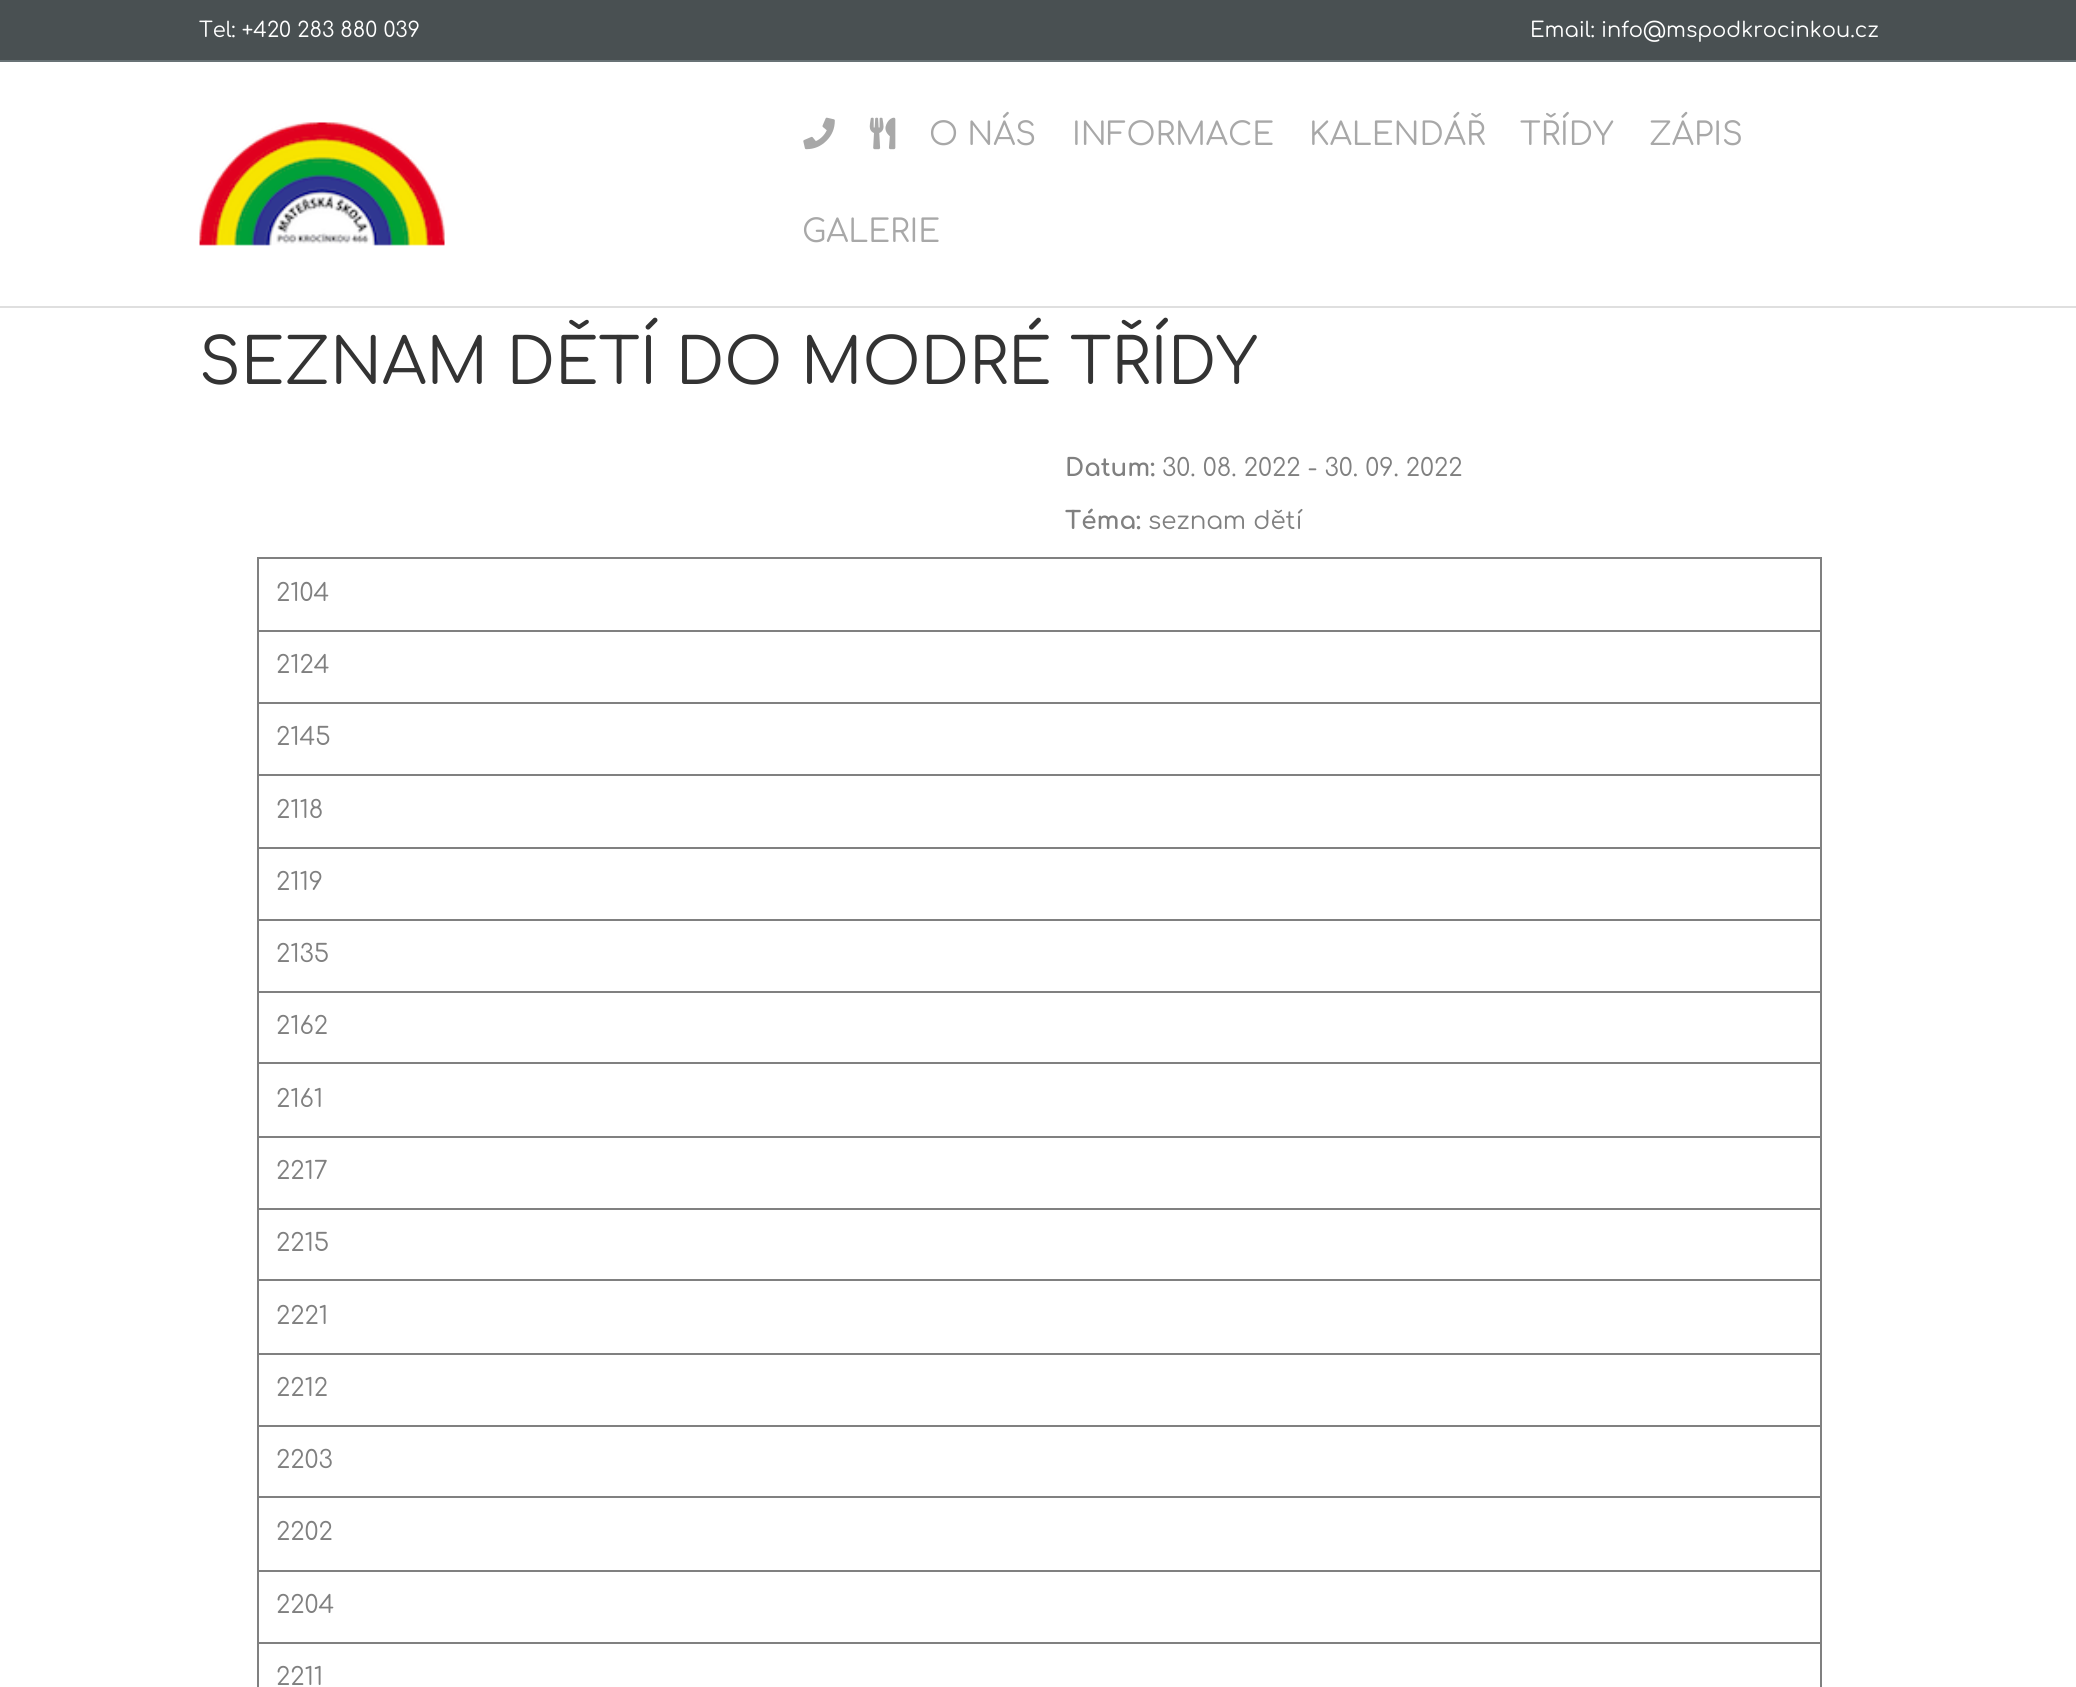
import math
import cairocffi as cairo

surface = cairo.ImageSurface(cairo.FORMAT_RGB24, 2076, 1687)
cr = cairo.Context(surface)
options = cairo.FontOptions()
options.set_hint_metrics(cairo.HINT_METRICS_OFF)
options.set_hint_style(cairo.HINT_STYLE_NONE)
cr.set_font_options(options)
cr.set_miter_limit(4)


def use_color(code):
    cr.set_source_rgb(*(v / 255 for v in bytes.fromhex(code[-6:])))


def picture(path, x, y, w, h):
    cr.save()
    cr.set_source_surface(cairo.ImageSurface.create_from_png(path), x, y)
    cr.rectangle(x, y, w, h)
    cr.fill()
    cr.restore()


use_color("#ffffff")
cr.paint()
use_color("#495052")
cr.rectangle(0, 0, 2076, 60)
cr.fill()
use_color("#687275")
cr.rectangle(0, 60, 2076, 2)
cr.fill()
cr.select_font_face("Comfortaa")
cr.set_font_size(21)
use_color("#ffffff")
cr.move_to(199, 37)
cr.show_text("Tel: +420 283 880 039")
cr.move_to(1530, 37)
cr.show_text("Email: info@mspodkrocinkou.cz")
use_color("#dfdfdf")
cr.rectangle(0, 306, 2076, 2)
cr.fill()
picture("img1.png", 199, 122, 246, 124)
picture("img2.png", 803, 117, 32, 33)
picture("img3.png", 869, 117, 27, 33)
cr.set_font_size(31.5)
use_color("#a8a8a8")
cr.move_to(929, 145)
cr.show_text("O NÁS")
cr.move_to(1072, 145)
cr.show_text("INFORMACE")
cr.move_to(1309, 145)
cr.show_text("KALENDÁŘ")
cr.move_to(1520, 145)
cr.show_text("TŘÍDY")
cr.move_to(1649, 145)
cr.show_text("ZÁPIS")
cr.move_to(802, 242)
cr.show_text("GALERIE")
cr.set_font_size(63)
use_color("#333333")
cr.move_to(199, 384)
cr.show_text("SEZNAM DĚTÍ DO MODRÉ TŘÍDY")
cr.select_font_face("Comfortaa", cairo.FONT_SLANT_NORMAL, cairo.FONT_WEIGHT_BOLD)
cr.set_font_size(24.5)
use_color("#808080")
cr.move_to(1065, 476)
cr.show_text("Datum:")
cr.select_font_face("Comfortaa")
cr.move_to(1162, 476)
cr.show_text("30. 08. 2022 - 30. 09. 2022")
cr.select_font_face("Comfortaa", cairo.FONT_SLANT_NORMAL, cairo.FONT_WEIGHT_BOLD)
cr.move_to(1065, 529)
cr.show_text("Téma:")
cr.select_font_face("Comfortaa")
cr.move_to(1148, 529)
cr.show_text("seznam dětí")
cr.rectangle(257, 557, 1565, 2)
cr.fill()
cr.rectangle(1820, 557, 2, 1130)
cr.fill()
cr.rectangle(257, 557, 2, 1130)
cr.fill()
cr.move_to(276, 601)
cr.show_text("2104")
cr.rectangle(257, 630, 1565, 2)
cr.fill()
cr.move_to(276, 673)
cr.show_text("2124")
cr.rectangle(257, 702, 1565, 2)
cr.fill()
cr.move_to(276, 745)
cr.show_text("2145")
cr.rectangle(257, 774, 1565, 2)
cr.fill()
cr.move_to(276, 818)
cr.show_text("2118")
cr.rectangle(257, 847, 1565, 2)
cr.fill()
cr.move_to(276, 890)
cr.show_text("2119")
cr.rectangle(257, 919, 1565, 2)
cr.fill()
cr.move_to(276, 962)
cr.show_text("2135")
cr.rectangle(257, 991, 1565, 2)
cr.fill()
cr.move_to(276, 1034)
cr.show_text("2162")
cr.rectangle(257, 1062, 1565, 2)
cr.fill()
cr.move_to(276, 1107)
cr.show_text("2161")
cr.rectangle(257, 1136, 1565, 2)
cr.fill()
cr.move_to(276, 1179)
cr.show_text("2217")
cr.rectangle(257, 1208, 1565, 2)
cr.fill()
cr.move_to(276, 1251)
cr.show_text("2215")
cr.rectangle(257, 1279, 1565, 2)
cr.fill()
cr.move_to(276, 1324)
cr.show_text("2221")
cr.rectangle(257, 1353, 1565, 2)
cr.fill()
cr.move_to(276, 1396)
cr.show_text("2212")
cr.rectangle(257, 1425, 1565, 2)
cr.fill()
cr.move_to(276, 1468)
cr.show_text("2203")
cr.rectangle(257, 1496, 1565, 2)
cr.fill()
cr.move_to(276, 1540)
cr.show_text("2202")
cr.rectangle(257, 1570, 1565, 2)
cr.fill()
cr.move_to(276, 1613)
cr.show_text("2204")
cr.rectangle(257, 1642, 1565, 2)
cr.fill()
cr.move_to(276, 1685)
cr.show_text("2211")
surface.write_to_png("result.png")
